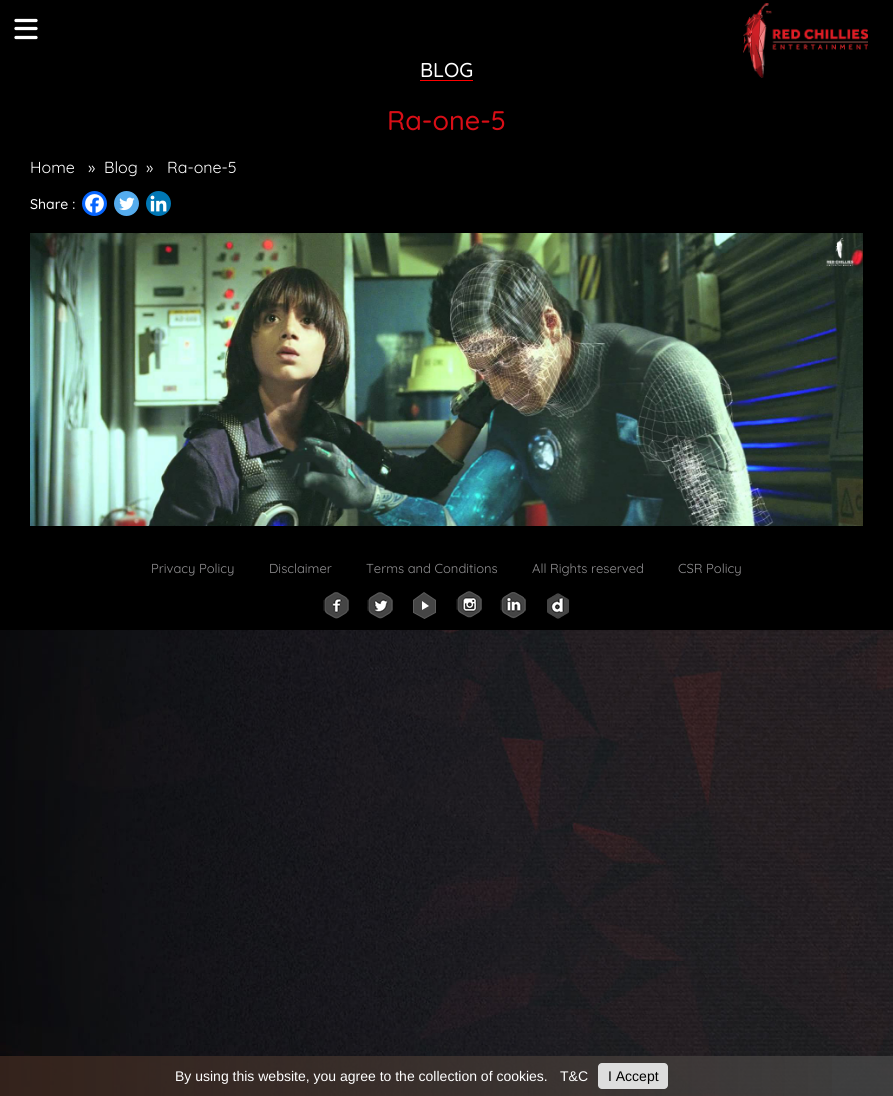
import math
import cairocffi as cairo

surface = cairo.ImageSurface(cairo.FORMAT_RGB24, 893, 1096)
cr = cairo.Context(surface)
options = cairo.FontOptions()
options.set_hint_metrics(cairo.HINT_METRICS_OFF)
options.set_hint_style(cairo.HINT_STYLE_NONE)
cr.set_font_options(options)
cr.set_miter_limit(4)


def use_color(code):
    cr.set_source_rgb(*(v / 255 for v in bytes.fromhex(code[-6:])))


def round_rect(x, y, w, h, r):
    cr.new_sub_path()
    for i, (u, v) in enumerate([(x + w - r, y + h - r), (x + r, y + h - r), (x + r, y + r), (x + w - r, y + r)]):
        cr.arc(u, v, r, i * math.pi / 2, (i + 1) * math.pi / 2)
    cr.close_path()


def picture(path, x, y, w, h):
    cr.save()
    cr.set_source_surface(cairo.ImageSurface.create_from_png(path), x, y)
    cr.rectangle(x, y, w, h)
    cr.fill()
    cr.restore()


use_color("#ffffff")
cr.paint()
picture("img1.png", 0, 630, 893, 466)
use_color("#000000")
cr.rectangle(0, 0, 893, 630)
cr.fill()
cr.new_path()
cr.move_to(16, 20.5)
cr.line_to(36, 20.5)
cr.move_to(16, 28.5)
cr.line_to(36, 28.5)
cr.move_to(16, 37.5)
cr.line_to(36, 37.5)
use_color("#ffffff")
cr.set_line_width(3.3)
cr.set_line_cap(cairo.LINE_CAP_ROUND)
cr.stroke()
picture("img2.png", 743, 3, 125, 75)
use_color("#ff0000")
cr.rectangle(420, 80, 53, 1)
cr.fill()
cr.select_font_face("Quicksand Medium")
cr.set_font_size(20)
use_color("#ffffff")
cr.move_to(420, 77)
cr.show_text("BLOG")
cr.set_font_size(27)
use_color("#d90e16")
cr.move_to(387, 130)
cr.show_text("Ra-one-5")
cr.select_font_face("Quicksand")
cr.set_font_size(16)
use_color("#ffffff")
cr.move_to(30, 173)
cr.show_text("Home")
cr.move_to(88, 173)
cr.show_text("»")
cr.move_to(104, 173)
cr.show_text("Blog")
cr.move_to(146, 173)
cr.show_text("»")
cr.move_to(167, 173)
cr.show_text("Ra-one-5")
cr.select_font_face("Quicksand Medium")
cr.set_font_size(14)
cr.move_to(30, 209)
cr.show_text("Share :")
use_color("#0765fe")
cr.new_path()
cr.arc(94.5, 203.5, 12.5, 0, 2 * math.pi)
cr.fill()
picture("img3.png", 85, 194, 19, 19)
use_color("#55acee")
cr.arc(126.5, 203.5, 12.5, 0, 2 * math.pi)
cr.fill()
picture("img4.png", 119, 197, 16, 14)
use_color("#0077b5")
cr.arc(158.5, 203.5, 12.5, 0, 2 * math.pi)
cr.fill()
picture("img5.png", 150, 195, 17, 17)
picture("img6.png", 30, 233, 833, 293)
cr.select_font_face("Quicksand")
cr.set_font_size(13)
use_color("#949395")
cr.move_to(151, 573)
cr.show_text("Privacy Policy")
cr.move_to(269, 573)
cr.show_text("Disclaimer")
cr.move_to(366, 573)
cr.show_text("Terms and Conditions")
cr.move_to(532, 573)
cr.show_text("All Rights reserved")
cr.move_to(678, 573)
cr.show_text("CSR Policy")
picture("img7.png", 323, 592, 26, 27)
picture("img8.png", 367, 592, 26, 27)
picture("img9.png", 413, 592, 23, 27)
picture("img10.png", 456, 591, 26, 27)
picture("img11.png", 500, 592, 26, 27)
picture("img12.png", 547, 593, 22, 26)
cr.set_source_rgba(0.275, 0.275, 0.275, 0.8)
cr.rectangle(0, 1056, 893, 40)
cr.fill()
gradient = cairo.LinearGradient(0, 1076, 893, 1076)
gradient.add_color_stop_rgba(0, 0.184, 0.071, 0.024, 0.6)
gradient.add_color_stop_rgba(1, 0.184, 0.071, 0.024, 0)
cr.set_source(gradient)
cr.rectangle(0, 1056, 832, 40)
cr.fill()
cr.select_font_face("Liberation Sans")
cr.set_font_size(14)
use_color("#ffffff")
cr.move_to(175, 1081)
cr.show_text("By using this website, you agree to the collection of cookies.")
cr.move_to(560, 1081)
cr.show_text("T&C")
use_color("#dddddd")
round_rect(598, 1063, 70, 26, 4)
cr.fill()
use_color("#000000")
cr.move_to(608, 1081)
cr.show_text("I Accept")
surface.write_to_png("result.png")
